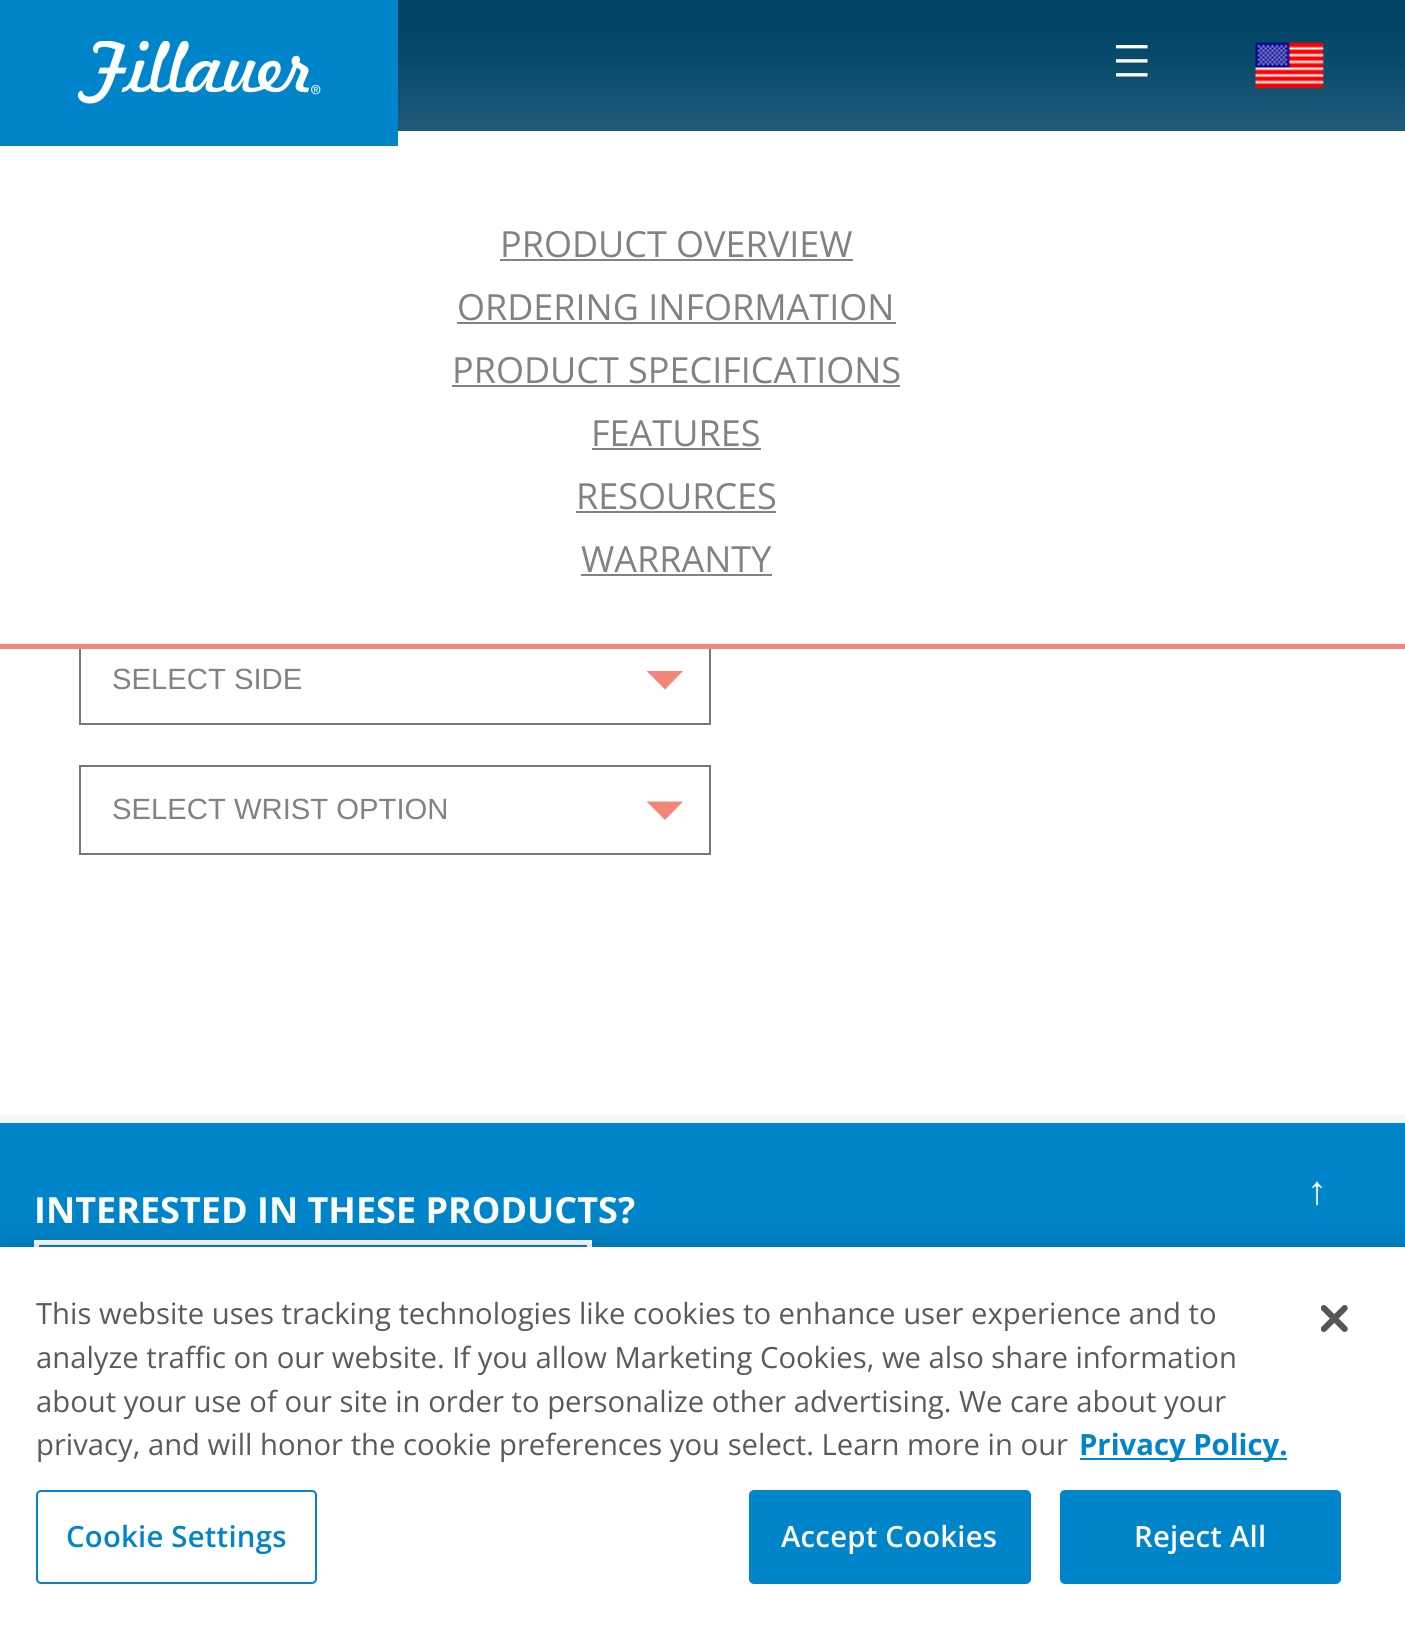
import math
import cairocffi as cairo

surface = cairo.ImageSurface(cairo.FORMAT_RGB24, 1405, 1630)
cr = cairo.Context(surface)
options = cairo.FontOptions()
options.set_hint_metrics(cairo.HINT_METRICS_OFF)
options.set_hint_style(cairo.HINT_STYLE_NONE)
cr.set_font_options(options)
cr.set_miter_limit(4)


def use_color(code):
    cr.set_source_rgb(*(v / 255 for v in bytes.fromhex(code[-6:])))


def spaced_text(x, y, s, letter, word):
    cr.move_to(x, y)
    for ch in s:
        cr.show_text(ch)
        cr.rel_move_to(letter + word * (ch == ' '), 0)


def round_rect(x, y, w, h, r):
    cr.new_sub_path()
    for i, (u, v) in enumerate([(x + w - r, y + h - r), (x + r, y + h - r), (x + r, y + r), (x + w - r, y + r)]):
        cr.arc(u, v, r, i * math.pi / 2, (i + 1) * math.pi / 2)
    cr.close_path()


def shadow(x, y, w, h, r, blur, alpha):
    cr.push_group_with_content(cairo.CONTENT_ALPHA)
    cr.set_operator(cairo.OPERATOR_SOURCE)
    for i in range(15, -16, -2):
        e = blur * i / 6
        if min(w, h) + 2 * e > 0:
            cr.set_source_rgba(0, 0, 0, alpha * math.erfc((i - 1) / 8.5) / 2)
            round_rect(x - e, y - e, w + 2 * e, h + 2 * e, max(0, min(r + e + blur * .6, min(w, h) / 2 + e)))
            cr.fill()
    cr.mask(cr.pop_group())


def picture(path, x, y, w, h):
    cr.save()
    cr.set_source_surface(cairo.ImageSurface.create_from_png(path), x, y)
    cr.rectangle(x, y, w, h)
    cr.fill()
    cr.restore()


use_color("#ffffff")
cr.paint()
gradient = cairo.LinearGradient(703, 0, 703, 131)
gradient.add_color_stop_rgba(0.24, 0, 0.267, 0.4, 1)
gradient.add_color_stop_rgba(1, 0.122, 0.353, 0.471, 1)
cr.set_source(gradient)
cr.rectangle(398, 0, 1007, 131)
cr.fill()
use_color("#0085ca")
cr.rectangle(0, 0, 398, 146)
cr.fill()
picture("img1.png", 77, 41, 244, 63)
picture("img2.png", 1116, 45, 32, 32)
picture("img3.png", 1255, 42, 69, 47)
use_color("#f48579")
cr.new_path()
cr.move_to(646.5, 671)
cr.line_to(665, 689.5)
cr.line_to(683, 671)
cr.close_path()
cr.fill()
cr.rectangle(80, 636, 630, 88)
use_color("#767676")
cr.stroke()
use_color("#f48579")
cr.rectangle(0, 644, 1405, 5)
cr.fill()
cr.select_font_face("Open Sans")
cr.set_font_size(36)
use_color("#828282")
cr.move_to(500, 257)
cr.show_text("PRODUCT OVERVIEW")
cr.rectangle(500, 259, 353, 2)
cr.fill()
cr.move_to(457, 320)
cr.show_text("ORDERING INFORMATION")
cr.rectangle(457, 322, 439, 2)
cr.fill()
cr.move_to(452, 383)
cr.show_text("PRODUCT SPECIFICATIONS")
cr.rectangle(452, 385, 448, 2)
cr.fill()
cr.move_to(591, 446)
cr.show_text("FEATURES")
cr.rectangle(592, 448, 169, 2)
cr.fill()
cr.move_to(576, 509)
cr.show_text("RESOURCES")
cr.rectangle(576, 511, 200, 2)
cr.fill()
cr.move_to(581, 572)
cr.show_text("WARRANTY")
cr.rectangle(581, 574, 191, 2)
cr.fill()
use_color("#ffffff")
cr.rectangle(79, 635, 632, 9)
cr.fill()
cr.select_font_face("Liberation Sans")
cr.set_font_size(29.25)
use_color("#828282")
cr.move_to(112, 689)
cr.show_text("SELECT SIDE")
use_color("#f48579")
cr.new_path()
cr.move_to(646.5, 801.5)
cr.line_to(665, 820)
cr.line_to(683, 801.5)
cr.close_path()
cr.fill()
cr.rectangle(80, 766, 630, 88)
use_color("#767676")
cr.stroke()
use_color("#828282")
cr.move_to(112, 819)
cr.show_text("SELECT WRIST OPTION")
use_color("#f7f7f7")
cr.rectangle(0, 1114, 1405, 9)
cr.fill()
use_color("#0085ca")
cr.rectangle(0, 1123, 1405, 124)
cr.fill()
cr.select_font_face("Open Sans", cairo.FONT_SLANT_NORMAL, cairo.FONT_WEIGHT_BOLD)
cr.set_font_size(36)
use_color("#ffffff")
cr.move_to(34, 1223)
cr.show_text("INTERESTED IN THESE PRODUCTS?")
cr.rectangle(36.5, 1242.5, 553, 76)
cr.set_line_width(5)
cr.stroke()
cr.select_font_face("Liberation Sans")
cr.set_font_size(40)
cr.move_to(1307, 1204)
cr.show_text("↑")
use_color("#000000")
shadow(0, 1247, 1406, 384, 0, 20, 0.2)
use_color("#ffffff")
cr.rectangle(0, 1247, 1405, 383)
cr.fill()
cr.select_font_face("Open Sans")
cr.set_font_size(29.25)
use_color("#5a5a5a")
cr.move_to(36, 1324)
cr.show_text("This website uses tracking technologies like cookies to enhance user experience and to")
cr.move_to(36, 1368)
cr.show_text("analyze traffic on our website. If you allow Marketing Cookies, we also share information")
cr.move_to(36, 1412)
cr.show_text("about your use of our site in order to personalize other advertising. We care about your")
cr.move_to(36, 1455)
cr.show_text("privacy, and will honor the cookie preferences you select. Learn more in our")
use_color("#0085ca")
cr.rectangle(1080, 1458, 207, 2)
cr.fill()
cr.select_font_face("Open Sans", cairo.FONT_SLANT_NORMAL, cairo.FONT_WEIGHT_BOLD)
cr.move_to(1079, 1455)
cr.show_text("Privacy Policy.")
round_rect(37, 1491, 279, 92, 4)
cr.set_line_width(2)
cr.stroke()
cr.select_font_face("Open Sans SemiBold")
spaced_text(66, 1547, "Cookie Settings", 0.25, 0)
round_rect(750, 1491, 280, 92, 4)
cr.fill_preserve()
cr.stroke()
use_color("#ffffff")
spaced_text(781, 1547, "Accept Cookies", 0.25, 0)
use_color("#0085ca")
round_rect(1061, 1491, 279, 92, 4)
cr.fill_preserve()
cr.stroke()
use_color("#ffffff")
spaced_text(1134, 1547, "Reject All", 0.25, 0)
picture("img4.png", 1321, 1305, 27, 27)
surface.write_to_png("result.png")
